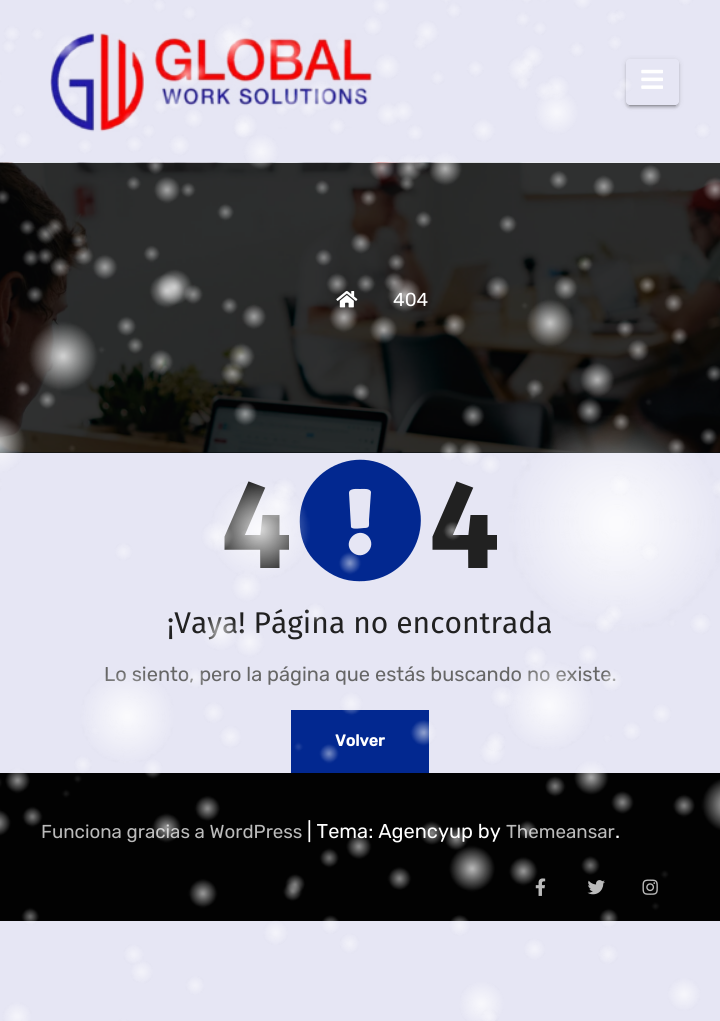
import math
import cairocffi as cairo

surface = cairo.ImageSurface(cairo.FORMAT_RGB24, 720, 1021)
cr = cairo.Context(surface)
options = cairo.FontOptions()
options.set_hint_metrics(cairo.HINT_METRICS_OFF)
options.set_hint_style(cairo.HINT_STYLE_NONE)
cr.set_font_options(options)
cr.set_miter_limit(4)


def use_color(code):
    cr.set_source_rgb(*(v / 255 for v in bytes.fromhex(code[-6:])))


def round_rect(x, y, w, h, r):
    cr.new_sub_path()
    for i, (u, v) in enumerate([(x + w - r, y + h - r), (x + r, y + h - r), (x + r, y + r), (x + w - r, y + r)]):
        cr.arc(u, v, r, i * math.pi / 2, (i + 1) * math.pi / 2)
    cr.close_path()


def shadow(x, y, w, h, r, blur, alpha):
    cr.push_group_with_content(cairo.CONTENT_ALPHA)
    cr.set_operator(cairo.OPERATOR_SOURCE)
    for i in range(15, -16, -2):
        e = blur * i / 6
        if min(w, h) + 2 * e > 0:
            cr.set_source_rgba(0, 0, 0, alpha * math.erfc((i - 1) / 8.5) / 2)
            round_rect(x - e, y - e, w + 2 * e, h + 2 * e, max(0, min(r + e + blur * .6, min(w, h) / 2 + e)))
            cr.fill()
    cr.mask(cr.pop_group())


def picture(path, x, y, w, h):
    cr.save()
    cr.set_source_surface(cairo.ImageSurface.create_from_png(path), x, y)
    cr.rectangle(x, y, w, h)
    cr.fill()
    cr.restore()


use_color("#e6e6f4")
cr.paint()
picture("img2.png", 50, 33, 322, 99)
cr.save()
cr.set_fill_rule(cairo.FILL_RULE_EVEN_ODD)
cr.new_path()
cr.move_to(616, 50)
cr.line_to(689, 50)
cr.line_to(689, 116)
cr.line_to(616, 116)
cr.close_path()
cr.move_to(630, 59)
cr.line_to(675, 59)
cr.curve_to(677, 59, 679, 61, 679, 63)
cr.line_to(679, 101)
cr.curve_to(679, 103, 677, 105, 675, 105)
cr.line_to(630, 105)
cr.curve_to(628, 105, 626, 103, 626, 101)
cr.line_to(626, 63)
cr.curve_to(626, 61, 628, 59, 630, 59)
cr.close_path()
cr.clip()
use_color("#000000")
shadow(626, 60, 53, 46, 4, 3, 0.12)
cr.restore()
cr.save()
cr.rectangle(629, 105, 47, 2)
cr.clip()
use_color("#000000")
shadow(629, 65, 47, 41, 1, 0.5, 0.2)
cr.restore()
cr.save()
cr.set_fill_rule(cairo.FILL_RULE_EVEN_ODD)
cr.new_path()
cr.move_to(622, 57)
cr.line_to(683, 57)
cr.line_to(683, 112)
cr.line_to(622, 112)
cr.close_path()
cr.move_to(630, 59)
cr.line_to(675, 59)
cr.curve_to(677, 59, 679, 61, 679, 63)
cr.line_to(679, 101)
cr.curve_to(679, 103, 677, 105, 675, 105)
cr.line_to(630, 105)
cr.curve_to(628, 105, 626, 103, 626, 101)
cr.line_to(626, 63)
cr.curve_to(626, 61, 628, 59, 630, 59)
cr.close_path()
cr.clip()
use_color("#000000")
shadow(626, 61, 53, 47, 4, 1, 0.14)
cr.restore()
picture("img3.png", 641, 69, 22, 20)
use_color("#040b0e")
cr.rectangle(0, 452, 720, 1)
cr.fill()
picture("img4.png", 0, 162, 720, 291)
picture("img5.png", 336, 291, 22, 17)
cr.select_font_face("Rubik")
cr.set_font_size(18.75)
use_color("#ffffff")
cr.move_to(393, 306)
cr.show_text("404")
cr.select_font_face("Fira Sans", cairo.FONT_SLANT_NORMAL, cairo.FONT_WEIGHT_BOLD)
cr.set_font_size(125)
use_color("#212121")
cr.move_to(221, 568)
cr.show_text("4")
use_color("#022890")
cr.new_path()
cr.move_to(403, 478)
cr.curve_to(443, 518, 411, 586, 354, 581)
cr.curve_to(340, 580, 327, 573, 317, 563)
cr.curve_to(307, 554, 301, 541, 300, 527)
cr.curve_to(295, 470, 362, 437, 403, 478)
cr.close_path()
cr.move_to(368, 536)
cr.curve_to(357, 526, 342, 542, 352, 552)
cr.curve_to(363, 562, 378, 547, 368, 536)
cr.close_path()
cr.move_to(349, 493)
cr.line_to(351, 527)
cr.curve_to(352, 530, 362, 528, 364, 528)
cr.curve_to(370, 528, 369, 526, 369, 520)
cr.line_to(371, 492)
cr.curve_to(370, 488, 363, 489, 360, 489)
cr.curve_to(357, 489, 349, 488, 349, 493)
cr.close_path()
cr.fill()
use_color("#212121")
cr.move_to(429, 568)
cr.show_text("4")
cr.select_font_face("Fira Sans")
cr.set_font_size(30)
cr.move_to(167, 633)
cr.show_text("¡Vaya! Página no encontrada")
cr.select_font_face("Rubik")
cr.set_font_size(20)
use_color("#666666")
cr.move_to(104, 681)
cr.show_text("Lo siento, pero la página que estás buscando no existe.")
use_color("#022890")
cr.rectangle(291, 710, 138, 63)
cr.fill()
cr.select_font_face("Rubik", cairo.FONT_SLANT_NORMAL, cairo.FONT_WEIGHT_BOLD)
cr.set_font_size(16)
use_color("#ffffff")
cr.move_to(335, 746)
cr.show_text("Volver")
use_color("#020202")
cr.rectangle(0, 773, 720, 148)
cr.fill()
cr.select_font_face("Rubik")
cr.set_font_size(18.75)
use_color("#bbbbbb")
cr.move_to(41, 838)
cr.show_text("Funciona gracias a WordPress")
cr.set_font_size(20)
use_color("#ffffff")
cr.move_to(307, 838)
cr.show_text("| Tema: Agencyup by")
cr.set_font_size(18.75)
use_color("#bbbbbb")
cr.move_to(506, 838)
cr.show_text("Themeansar")
cr.set_font_size(20)
use_color("#ffffff")
cr.move_to(615, 838)
cr.show_text(".")
picture("img6.png", 535, 878, 11, 18)
picture("img7.png", 587, 880, 18, 15)
picture("img8.png", 642, 879, 16, 16)
picture("img1.png", 0, 0, 720, 1021)
surface.write_to_png("result.png")
